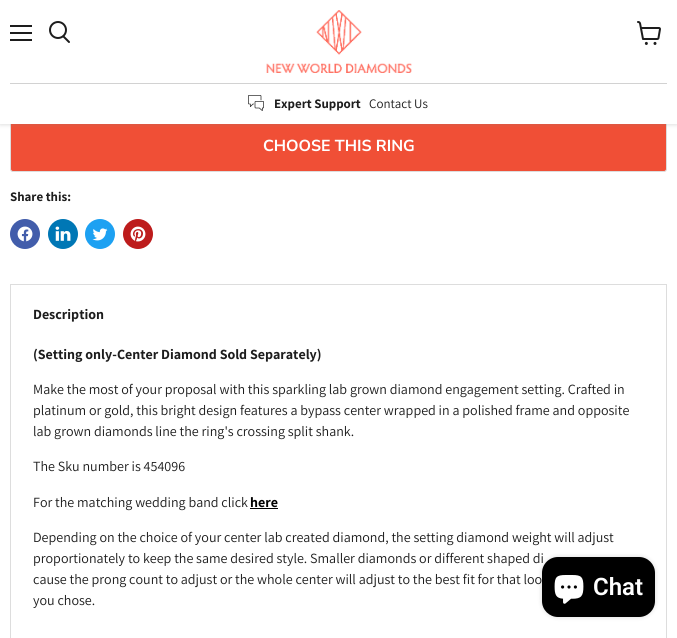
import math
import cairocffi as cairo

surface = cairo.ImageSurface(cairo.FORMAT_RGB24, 677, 638)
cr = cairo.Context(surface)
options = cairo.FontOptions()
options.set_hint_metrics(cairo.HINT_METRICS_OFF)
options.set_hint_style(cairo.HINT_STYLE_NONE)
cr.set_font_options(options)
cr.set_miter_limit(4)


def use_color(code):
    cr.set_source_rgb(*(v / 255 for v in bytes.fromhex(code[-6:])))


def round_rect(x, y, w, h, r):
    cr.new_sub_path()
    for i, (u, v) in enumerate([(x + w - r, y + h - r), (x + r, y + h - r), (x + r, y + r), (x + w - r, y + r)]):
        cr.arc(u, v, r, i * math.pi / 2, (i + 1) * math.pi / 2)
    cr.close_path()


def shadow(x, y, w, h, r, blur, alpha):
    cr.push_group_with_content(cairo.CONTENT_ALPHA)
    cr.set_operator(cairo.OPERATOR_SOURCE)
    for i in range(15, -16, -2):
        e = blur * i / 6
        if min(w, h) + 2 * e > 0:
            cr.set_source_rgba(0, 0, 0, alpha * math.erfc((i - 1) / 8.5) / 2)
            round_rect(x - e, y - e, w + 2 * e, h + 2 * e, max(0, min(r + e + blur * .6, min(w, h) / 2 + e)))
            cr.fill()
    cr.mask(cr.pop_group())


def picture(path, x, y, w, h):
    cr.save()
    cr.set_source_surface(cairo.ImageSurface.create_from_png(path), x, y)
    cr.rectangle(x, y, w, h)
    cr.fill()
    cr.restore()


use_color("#ffffff")
cr.paint()
use_color("#f04f36")
round_rect(10.5, 121.5, 656, 50, 2.5)
cr.fill_preserve()
use_color("#dddddd")
cr.set_line_width(1)
cr.stroke()
use_color("#808080")
shadow(0, 1, 677, 124, 0, 2, 0.25)
use_color("#ffffff")
cr.rectangle(0, 0, 677, 124)
cr.fill()
use_color("#1d1d1d")
cr.rectangle(10, 25, 22, 2)
cr.fill()
cr.rectangle(10, 32, 22, 2)
cr.fill()
cr.rectangle(10, 39, 22, 2)
cr.fill()
cr.new_path()
cr.move_to(69, 42)
cr.line_to(63.5, 36.5)
cr.set_line_width(2)
cr.set_line_cap(cairo.LINE_CAP_ROUND)
cr.stroke()
cr.arc(58, 30, 8, 0, 2 * math.pi)
cr.set_line_cap(cairo.LINE_CAP_BUTT)
cr.stroke()
picture("img1.png", 637, 21, 24, 24)
picture("img2.png", 266, 10, 146, 63)
use_color("#d2d2d2")
cr.rectangle(10, 83, 657, 1)
cr.fill()
picture("img3.png", 248, 95, 16, 16)
cr.select_font_face("Assistant", cairo.FONT_SLANT_NORMAL, cairo.FONT_WEIGHT_BOLD)
cr.set_font_size(13)
use_color("#1d1d1d")
cr.move_to(274, 108)
cr.show_text("Expert Support")
cr.select_font_face("Assistant")
cr.move_to(369, 108)
cr.show_text("Contact Us")
cr.select_font_face("Nunito Sans", cairo.FONT_SLANT_NORMAL, cairo.FONT_WEIGHT_BOLD)
cr.set_font_size(15.9)
use_color("#ffffff")
cr.move_to(263, 151)
cr.show_text("CHOOSE THIS RING")
cr.select_font_face("Assistant", cairo.FONT_SLANT_NORMAL, cairo.FONT_WEIGHT_BOLD)
cr.set_font_size(13)
use_color("#1d1d1d")
cr.move_to(10, 201)
cr.show_text("Share this:")
use_color("#425dab")
cr.new_path()
cr.arc(25, 234, 15, 0, 2 * math.pi)
cr.fill()
picture("img4.png", 17, 226, 16, 16)
use_color("#0077b5")
cr.arc(63, 234, 15, 0, 2 * math.pi)
cr.fill()
picture("img5.png", 55, 226, 16, 15)
use_color("#1da1f2")
cr.arc(100, 234, 15, 0, 2 * math.pi)
cr.fill()
picture("img6.png", 92, 228, 16, 13)
use_color("#bd1c1c")
cr.arc(138, 234, 15, 0, 2 * math.pi)
cr.fill()
picture("img7.png", 130, 226, 16, 16)
use_color("#dddddd")
cr.rectangle(10, 284, 657, 1)
cr.fill()
cr.rectangle(666, 284, 1, 354)
cr.fill()
cr.rectangle(10, 284, 1, 354)
cr.fill()
cr.set_font_size(14.05)
use_color("#1d1d1d")
cr.move_to(33, 319)
cr.show_text("Description")
cr.move_to(33, 359)
cr.show_text("(Setting only-Center Diamond Sold Separately)")
cr.select_font_face("Assistant")
cr.move_to(33, 394)
cr.show_text("Make the most of your proposal with this sparkling lab grown diamond engagement setting. Crafted in")
cr.move_to(33, 415)
cr.show_text("platinum or gold, this bright design features a bypass center wrapped in a polished frame and opposite")
cr.move_to(33, 436)
cr.show_text("lab grown diamonds line the ring's crossing split shank.")
cr.move_to(33, 471)
cr.show_text("The Sku number is 454096")
cr.move_to(33, 507)
cr.show_text("For the matching wedding band click")
cr.select_font_face("Assistant", cairo.FONT_SLANT_NORMAL, cairo.FONT_WEIGHT_BOLD)
use_color("#000000")
cr.move_to(250, 507)
cr.show_text("here")
cr.rectangle(250, 508, 28, 1)
cr.fill()
cr.select_font_face("Assistant")
use_color("#1d1d1d")
cr.move_to(33, 542)
cr.show_text("Depending on the choice of your center lab created diamond, the setting diamond weight will adjust")
cr.move_to(33, 563)
cr.show_text("proportionately to keep the same desired style. Smaller diamonds or different shaped di")
cr.move_to(33, 584)
cr.show_text("cause the prong count to adjust or the whole center will adjust to the best fit for that loo")
cr.move_to(33, 605)
cr.show_text("you chose.")
use_color("#000000")
shadow(542, 557, 113, 60, 16, 2.5, 0.15)
use_color("#000000")
round_rect(542, 557, 113, 60, 16)
cr.fill()
picture("img8.png", 554, 575, 30, 29)
cr.select_font_face("Roboto SemiBold")
cr.set_font_size(24)
use_color("#ffffff")
cr.move_to(593, 595)
cr.show_text("Chat")
surface.write_to_png("result.png")
